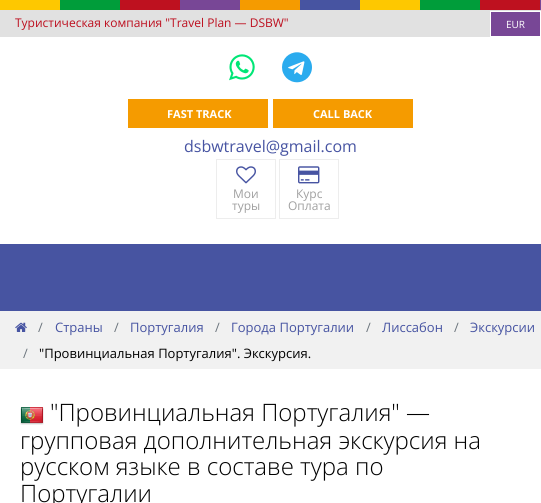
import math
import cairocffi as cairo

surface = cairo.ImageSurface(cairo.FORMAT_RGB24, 541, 503)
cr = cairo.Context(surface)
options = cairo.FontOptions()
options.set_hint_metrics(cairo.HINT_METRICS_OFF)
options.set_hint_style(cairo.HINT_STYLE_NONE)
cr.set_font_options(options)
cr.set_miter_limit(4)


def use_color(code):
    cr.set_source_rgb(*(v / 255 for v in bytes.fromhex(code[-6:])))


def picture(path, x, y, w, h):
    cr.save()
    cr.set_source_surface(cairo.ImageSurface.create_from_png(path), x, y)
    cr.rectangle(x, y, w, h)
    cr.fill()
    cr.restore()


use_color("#ffffff")
cr.paint()
picture("img1.png", 0, 0, 541, 10)
use_color("#e1e1e1")
cr.rectangle(0, 10, 541, 27)
cr.fill()
cr.select_font_face("Open Sans")
cr.set_font_size(12)
use_color("#bd0f1f")
cr.move_to(15, 27)
cr.show_text("Туристическая компания \"Travel Plan — DSBW\"")
use_color("#784796")
cr.rectangle(490.5, 11.5, 50, 25)
cr.fill_preserve()
use_color("#ffffff")
cr.set_line_width(1)
cr.stroke()
cr.set_font_size(10)
cr.move_to(506, 28)
cr.show_text("EUR")
picture("img2.png", 229, 54, 26, 27)
picture("img3.png", 282, 52, 30, 31)
use_color("#f59b00")
cr.rectangle(128, 99, 140, 29)
cr.fill()
cr.select_font_face("Open Sans", cairo.FONT_SLANT_NORMAL, cairo.FONT_WEIGHT_BOLD)
cr.set_font_size(11)
use_color("#ffffff")
cr.move_to(167, 118)
cr.show_text("FAST TRACK")
use_color("#f59b00")
cr.rectangle(273, 99, 140, 29)
cr.fill()
use_color("#ffffff")
cr.move_to(313, 118)
cr.show_text("CALL BACK")
cr.select_font_face("Open Sans")
cr.set_font_size(16)
use_color("#4754a2")
cr.move_to(184, 152)
cr.show_text("dsbwtravel@gmail.com")
cr.rectangle(216.5, 159.5, 59, 59)
use_color("#ededed")
cr.stroke()
picture("img4.png", 236, 166, 20, 18)
cr.set_font_size(12)
use_color("#a0a0a0")
cr.move_to(233, 198)
cr.show_text("Мои")
cr.move_to(232, 210)
cr.show_text("туры")
cr.rectangle(279.5, 159.5, 59, 59)
use_color("#ededed")
cr.stroke()
picture("img5.png", 298, 166, 22, 18)
use_color("#a0a0a0")
cr.move_to(296, 198)
cr.show_text("Курс")
cr.move_to(288, 210)
cr.show_text("Оплата")
use_color("#4754a1")
cr.rectangle(0, 244, 541, 67)
cr.fill()
use_color("#f1f1f1")
cr.rectangle(0, 311, 541, 58)
cr.fill()
picture("img6.png", 15, 322, 12, 10)
cr.set_font_size(13)
use_color("#6c757d")
cr.move_to(38, 332)
cr.show_text("/")
use_color("#4754a2")
cr.move_to(55, 332)
cr.show_text("Страны")
use_color("#6c757d")
cr.move_to(114, 332)
cr.show_text("/")
use_color("#4754a2")
cr.move_to(130, 332)
cr.show_text("Португалия")
use_color("#6c757d")
cr.move_to(215, 332)
cr.show_text("/")
use_color("#4754a2")
cr.move_to(231, 332)
cr.show_text("Города Португалии")
use_color("#6c757d")
cr.move_to(366, 332)
cr.show_text("/")
use_color("#4754a2")
cr.move_to(382, 332)
cr.show_text("Лиссабон")
use_color("#6c757d")
cr.move_to(454, 332)
cr.show_text("/")
use_color("#4754a2")
cr.move_to(470, 332)
cr.show_text("Экскурсии")
use_color("#6c757d")
cr.move_to(23, 358)
cr.show_text("/")
use_color("#000000")
cr.move_to(39, 358)
cr.show_text("\"Провинциальная Португалия\". Экскурсия.")
picture("img7.png", 20, 407, 24, 18)
cr.select_font_face("Open Sans Light")
cr.set_font_size(24)
cr.move_to(50, 421)
cr.show_text("\"Провинциальная Португалия\" —")
cr.move_to(20, 449)
cr.show_text("групповая дополнительная экскурсия на")
cr.move_to(20, 475)
cr.show_text("русском языке в составе тура по")
cr.move_to(20, 502)
cr.show_text("Португалии")
surface.write_to_png("result.png")
